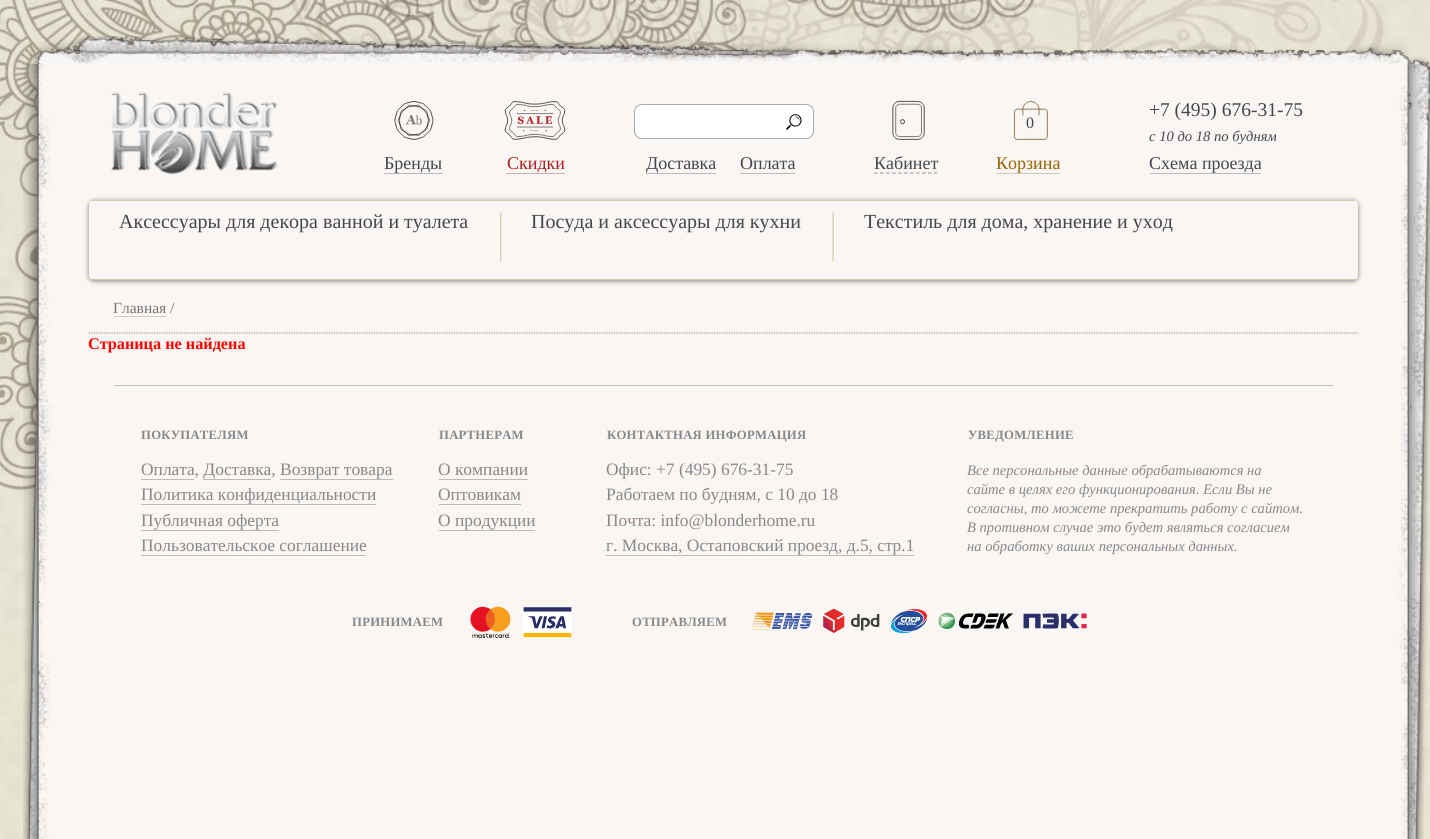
import math
import cairocffi as cairo

surface = cairo.ImageSurface(cairo.FORMAT_RGB24, 1430, 839)
cr = cairo.Context(surface)
options = cairo.FontOptions()
options.set_hint_metrics(cairo.HINT_METRICS_OFF)
options.set_hint_style(cairo.HINT_STYLE_NONE)
cr.set_font_options(options)
cr.set_miter_limit(4)


def use_color(code):
    cr.set_source_rgb(*(v / 255 for v in bytes.fromhex(code[-6:])))


def spaced_text(x, y, s, letter, word):
    cr.move_to(x, y)
    for ch in s:
        cr.show_text(ch)
        cr.rel_move_to(letter + word * (ch == ' '), 0)


def round_rect(x, y, w, h, r):
    cr.new_sub_path()
    for i, (u, v) in enumerate([(x + w - r, y + h - r), (x + r, y + h - r), (x + r, y + r), (x + w - r, y + r)]):
        cr.arc(u, v, r, i * math.pi / 2, (i + 1) * math.pi / 2)
    cr.close_path()


def shadow(x, y, w, h, r, blur, alpha):
    cr.push_group_with_content(cairo.CONTENT_ALPHA)
    cr.set_operator(cairo.OPERATOR_SOURCE)
    for i in range(15, -16, -2):
        e = blur * i / 6
        if min(w, h) + 2 * e > 0:
            cr.set_source_rgba(0, 0, 0, alpha * math.erfc((i - 1) / 8.5) / 2)
            round_rect(x - e, y - e, w + 2 * e, h + 2 * e, max(0, min(r + e + blur * .6, min(w, h) / 2 + e)))
            cr.fill()
    cr.mask(cr.pop_group())


def picture(path, x, y, w, h):
    cr.save()
    cr.set_source_surface(cairo.ImageSurface.create_from_png(path), x, y)
    cr.rectangle(x, y, w, h)
    cr.fill()
    cr.restore()


use_color("#ffffff")
cr.paint()
picture("img1.png", 0, 633, 1430, 206)
picture("img2.png", 0, 0, 1430, 634)
picture("img3.png", 26, 35, 1404, 804)
picture("img15.png", 23, 278, 1390, 561)
picture("img4.png", 23, 63, 1401, 776)
picture("img5.png", 111, 92, 167, 83)
picture("img6.png", 394, 101, 40, 39)
cr.select_font_face("Liberation Serif")
cr.set_font_size(18)
use_color("#45464d")
cr.move_to(384, 169)
cr.show_text("Бренды")
use_color("#bbbbbb")
cr.rectangle(384, 173, 59, 1)
cr.fill()
picture("img7.png", 504, 101, 62, 39)
use_color("#af1c1d")
cr.move_to(507, 169)
cr.show_text("Скидки")
use_color("#cdb0b0")
cr.rectangle(506, 173, 59, 1)
cr.fill()
use_color("#ffffff")
round_rect(634.5, 104.5, 179, 34, 7.5)
cr.fill_preserve()
use_color("#aaaaaa")
cr.set_line_width(1)
cr.stroke()
picture("img8.png", 786, 114, 16, 16)
use_color("#45464d")
cr.move_to(646, 169)
cr.show_text("Доставка")
use_color("#bbbbbb")
cr.rectangle(646, 173, 70, 1)
cr.fill()
use_color("#45464d")
cr.move_to(740, 169)
cr.show_text("Оплата")
use_color("#bbbbbb")
cr.rectangle(740, 173, 55, 1)
cr.fill()
picture("img9.png", 892, 100, 33, 40)
use_color("#45464d")
cr.move_to(874, 169)
cr.show_text("Кабинет")
cr.new_path()
cr.move_to(874, 173)
cr.line_to(937.5, 173)
use_color("#ababab")
cr.set_line_width(1.2)
cr.set_dash([3.75, 2.25])
cr.stroke()
picture("img10.png", 1013, 101, 35, 39)
cr.set_font_size(16)
use_color("#45464d")
cr.move_to(1026, 128)
cr.show_text("0")
cr.set_font_size(18)
use_color("#966300")
cr.move_to(996, 169)
cr.show_text("Корзина")
use_color("#cdc7bf")
cr.rectangle(996, 173, 64, 1)
cr.fill()
cr.set_font_size(19.5)
use_color("#45464d")
cr.move_to(1149, 116)
cr.show_text("+7 (495) 676-31-75")
cr.select_font_face("Liberation Serif", cairo.FONT_SLANT_ITALIC)
cr.set_font_size(14.6)
cr.move_to(1149, 141)
cr.show_text("с 10 до 18 по будням")
cr.select_font_face("Liberation Serif")
cr.set_font_size(18)
cr.move_to(1149, 169)
cr.show_text("Схема проезда")
use_color("#bbbbbb")
cr.rectangle(1150, 173, 111, 1)
cr.fill()
cr.save()
cr.set_fill_rule(cairo.FILL_RULE_EVEN_ODD)
cr.new_path()
cr.move_to(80, 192)
cr.line_to(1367, 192)
cr.line_to(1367, 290)
cr.line_to(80, 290)
cr.close_path()
cr.move_to(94, 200)
cr.line_to(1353, 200)
cr.curve_to(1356, 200, 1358, 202, 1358, 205)
cr.line_to(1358, 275)
cr.curve_to(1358, 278, 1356, 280, 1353, 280)
cr.line_to(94, 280)
cr.curve_to(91, 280, 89, 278, 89, 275)
cr.line_to(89, 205)
cr.curve_to(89, 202, 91, 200, 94, 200)
cr.close_path()
cr.clip()
use_color("#808080")
shadow(89, 201, 1269, 80, 5, 2.5, 1)
cr.restore()
use_color("#d5c9ae")
cr.rectangle(91, 200, 1264, 1)
cr.fill()
cr.rectangle(91, 279, 1264, 1)
cr.fill()
cr.set_font_size(20)
use_color("#45464d")
cr.move_to(119, 228)
cr.show_text("Аксессуары для декора ванной и туалета")
picture("img11.png", 500, 212, 2, 50)
cr.move_to(531, 228)
cr.show_text("Посуда и аксессуары для кухни")
picture("img12.png", 832, 212, 2, 50)
cr.move_to(864, 228)
cr.show_text("Текстиль для дома, хранение и уход")
cr.new_path()
cr.move_to(89, 333)
cr.line_to(1357.5, 333)
use_color("#999999")
cr.set_dash([1.25, 1.25])
cr.stroke()
cr.set_font_size(15.5)
use_color("#777777")
cr.move_to(113, 313)
cr.show_text("Главная /")
use_color("#cccccc")
cr.rectangle(114, 316, 52, 1)
cr.fill()
cr.select_font_face("Liberation Serif", cairo.FONT_SLANT_NORMAL, cairo.FONT_WEIGHT_BOLD)
cr.set_font_size(16.25)
use_color("#ff0000")
cr.move_to(88, 349)
cr.show_text("Страница не найдена")
use_color("#c2c0be")
cr.rectangle(114, 385, 1219, 1)
cr.fill()
cr.set_font_size(12.7)
use_color("#888888")
spaced_text(141, 439, "ПОКУПАТЕЛЯМ", 0.25, 0)
spaced_text(439, 439, "ПАРТНЕРАМ", 0.25, 0)
spaced_text(607, 439, "КОНТАКТНАЯ ИНФОРМАЦИЯ", 0.25, 0)
spaced_text(968, 439, "УВЕДОМЛЕНИЕ", 0.25, 0)
cr.select_font_face("Liberation Serif")
cr.set_font_size(17.4)
cr.move_to(141, 475)
cr.show_text("Оплата, Доставка, Возврат товара")
use_color("#bbbbbb")
cr.rectangle(141, 479, 53, 1)
cr.fill()
cr.rectangle(203, 479, 68, 1)
cr.fill()
cr.rectangle(280, 479, 113, 1)
cr.fill()
use_color("#888888")
cr.move_to(141, 500)
cr.show_text("Политика конфиденциальности")
use_color("#bbbbbb")
cr.rectangle(141, 504, 235, 1)
cr.fill()
use_color("#888888")
cr.move_to(141, 526)
cr.show_text("Публичная оферта")
use_color("#bbbbbb")
cr.rectangle(141, 530, 138, 1)
cr.fill()
use_color("#888888")
cr.move_to(141, 551)
cr.show_text("Пользовательское соглашение")
use_color("#bbbbbb")
cr.rectangle(141, 555, 225, 1)
cr.fill()
use_color("#888888")
cr.move_to(438, 475)
cr.show_text("О компании")
use_color("#bbbbbb")
cr.rectangle(439, 479, 89, 1)
cr.fill()
use_color("#888888")
cr.move_to(438, 500)
cr.show_text("Оптовикам")
use_color("#bbbbbb")
cr.rectangle(439, 504, 82, 1)
cr.fill()
use_color("#888888")
cr.move_to(438, 526)
cr.show_text("О продукции")
use_color("#bbbbbb")
cr.rectangle(439, 530, 96, 1)
cr.fill()
use_color("#888888")
cr.move_to(606, 475)
cr.show_text("Офис: +7 (495) 676-31-75")
cr.move_to(606, 500)
cr.show_text("Работаем по будням, с 10 до 18")
cr.move_to(606, 526)
cr.show_text("Почта: info@blonderhome.ru")
cr.move_to(606, 551)
cr.show_text("г. Москва, Остаповский проезд, д.5, стр.1")
use_color("#bbbbbb")
cr.rectangle(606, 555, 308, 1)
cr.fill()
cr.select_font_face("Liberation Serif", cairo.FONT_SLANT_ITALIC)
cr.set_font_size(14.6)
use_color("#888888")
cr.move_to(967, 475)
cr.show_text("Все персональные данные обрабатываются на")
cr.move_to(967, 494)
cr.show_text("сайте в целях его функционирования. Если Вы не")
cr.move_to(967, 513)
cr.show_text("согласны, то можете прекратить работу с сайтом.")
cr.move_to(967, 532)
cr.show_text("В противном случае это будет являться согласием")
cr.move_to(967, 551)
cr.show_text("на обработку ваших персональных данных.")
cr.select_font_face("Liberation Serif", cairo.FONT_SLANT_NORMAL, cairo.FONT_WEIGHT_BOLD)
cr.set_font_size(12.7)
spaced_text(352, 626, "ПРИНИМАЕМ", 0.25, 0)
picture("img13.png", 470, 606, 102, 32)
spaced_text(632, 626, "ОТПРАВЛЯЕМ", 0.25, 0)
picture("img14.png", 751, 608, 336, 26)
surface.write_to_png("result.png")
